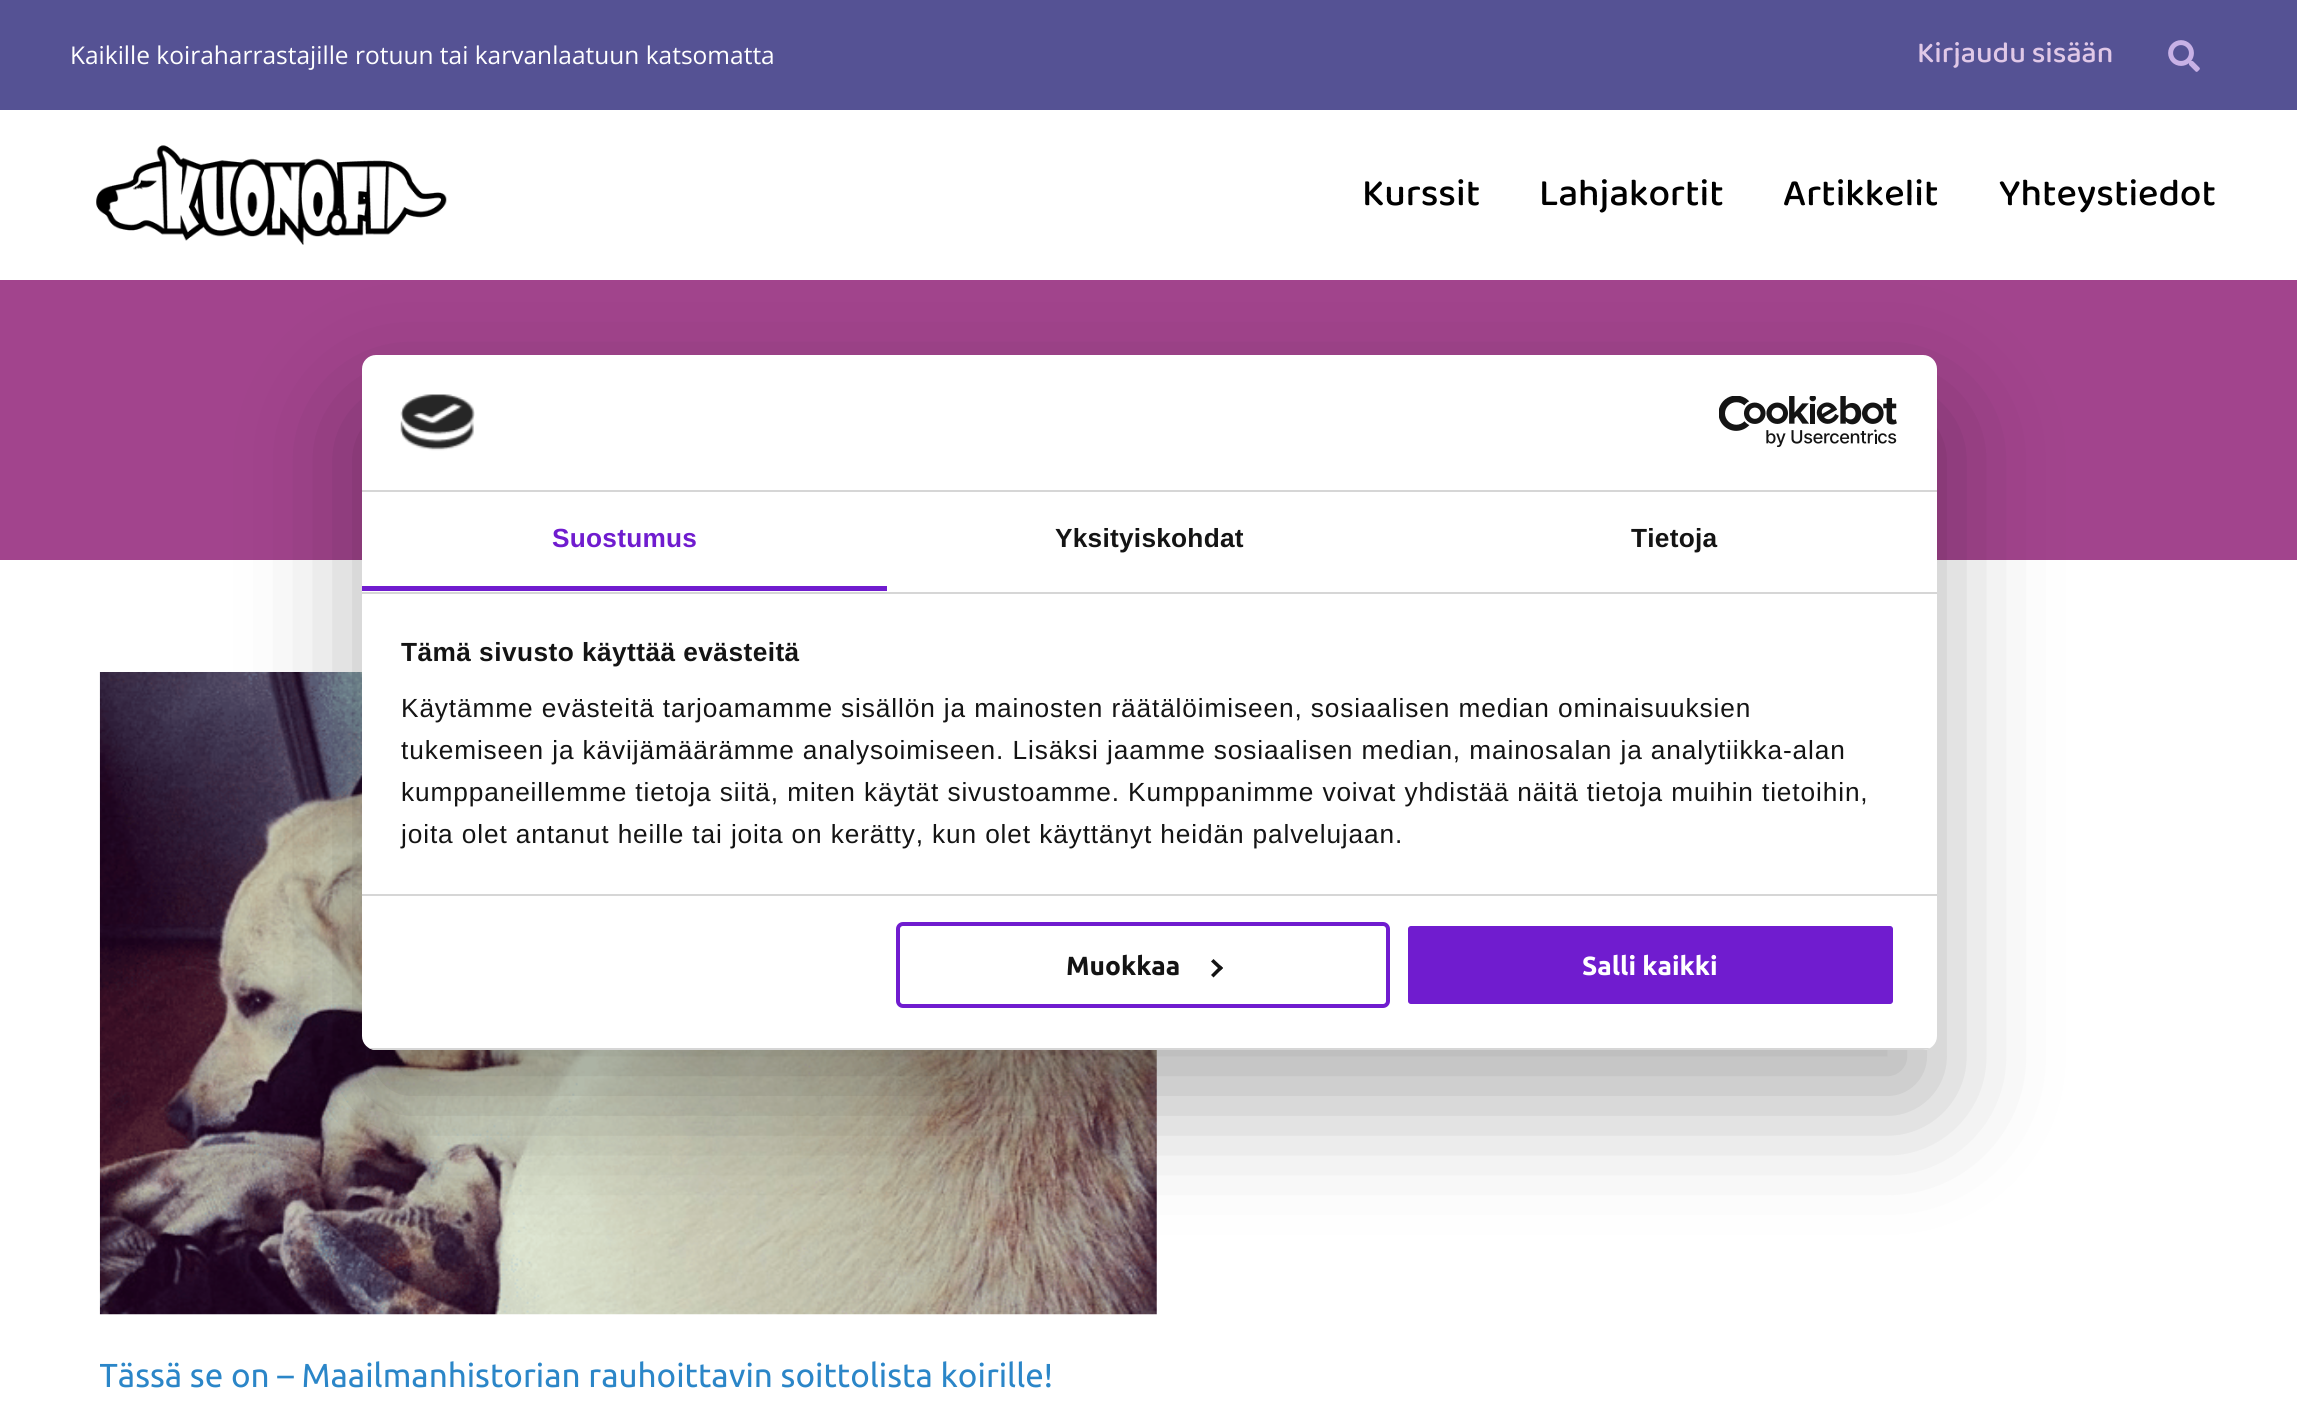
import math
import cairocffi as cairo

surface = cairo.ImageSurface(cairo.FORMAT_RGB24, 2297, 1403)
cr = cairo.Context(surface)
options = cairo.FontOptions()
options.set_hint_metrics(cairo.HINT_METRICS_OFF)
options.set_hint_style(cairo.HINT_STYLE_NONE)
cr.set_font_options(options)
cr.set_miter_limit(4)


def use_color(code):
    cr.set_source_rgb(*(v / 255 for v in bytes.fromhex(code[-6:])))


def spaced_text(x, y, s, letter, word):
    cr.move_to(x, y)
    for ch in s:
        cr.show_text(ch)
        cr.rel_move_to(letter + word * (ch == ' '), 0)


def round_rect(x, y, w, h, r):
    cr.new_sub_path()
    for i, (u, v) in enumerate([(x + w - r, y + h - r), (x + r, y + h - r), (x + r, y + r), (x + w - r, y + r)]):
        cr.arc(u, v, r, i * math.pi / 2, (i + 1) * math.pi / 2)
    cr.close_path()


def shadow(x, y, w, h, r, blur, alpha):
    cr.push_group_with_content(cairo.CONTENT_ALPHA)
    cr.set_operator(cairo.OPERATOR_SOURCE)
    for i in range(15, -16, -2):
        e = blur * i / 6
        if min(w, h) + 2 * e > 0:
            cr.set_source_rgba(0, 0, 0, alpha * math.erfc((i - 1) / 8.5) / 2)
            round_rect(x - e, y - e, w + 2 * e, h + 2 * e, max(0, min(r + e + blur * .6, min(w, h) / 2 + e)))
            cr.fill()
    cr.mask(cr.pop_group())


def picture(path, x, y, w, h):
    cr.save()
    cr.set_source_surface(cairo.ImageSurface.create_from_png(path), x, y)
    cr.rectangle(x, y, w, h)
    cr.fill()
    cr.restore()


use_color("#ffffff")
cr.paint()
use_color("#555294")
cr.rectangle(0, 0, 2297, 110)
cr.fill()
cr.select_font_face("Open Sans")
cr.set_font_size(24.5)
use_color("#ffffff")
cr.move_to(70, 64)
cr.show_text("Kaikille koiraharrastajille rotuun tai karvanlaatuun katsomatta")
cr.select_font_face("Baloo 2 Medium")
cr.set_font_size(29.75)
use_color("#e0c8e7")
cr.move_to(1917, 62)
cr.show_text("Kirjaudu sisään")
picture("img1.png", 2168, 40, 32, 32)
picture("img2.png", 96, 145, 351, 100)
cr.set_font_size(38.5)
use_color("#000000")
cr.move_to(1362, 205)
cr.show_text("Kurssit")
cr.move_to(1539, 205)
cr.show_text("Lahjakortit")
cr.move_to(1783, 205)
cr.show_text("Artikkelit")
cr.move_to(1999, 205)
cr.show_text("Yhteystiedot")
use_color("#a2448d")
cr.rectangle(0, 280, 2297, 280)
cr.fill()
picture("img3.png", 99, 672, 1058, 643)
cr.save()
cr.rectangle(100, 672, 2100, 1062)
cr.clip()
cr.select_font_face("Ubuntu")
cr.set_font_size(33.25)
use_color("#2b86c8")
cr.move_to(99, 1387)
cr.show_text("Tässä se on – Maailmanhistorian rauhoittavin soittolista koirille!")
cr.restore()
use_color("#000000")
shadow(362, 411, 1575, 695, 14, 59.5, 0.3)
use_color("#ffffff")
round_rect(362, 355, 1575, 695, 14)
cr.fill()
use_color("#d6d6d6")
cr.rectangle(362, 490, 1575, 2)
cr.fill()
picture("img4.png", 400, 394, 75, 57)
picture("img5.png", 1719, 396, 178, 52)
cr.rectangle(362, 592, 1575, 2)
cr.fill()
use_color("#701ccf")
cr.rectangle(362, 586, 525, 5)
cr.fill()
cr.select_font_face("Liberation Sans", cairo.FONT_SLANT_NORMAL, cairo.FONT_WEIGHT_BOLD)
cr.set_font_size(26.25)
spaced_text(552, 547, "Suostumus", 0.25, 0)
use_color("#141414")
spaced_text(1055, 547, "Yksityiskohdat", 0.25, 0)
spaced_text(1631, 547, "Tietoja", 0.25, 0)
use_color("#d6d6d6")
cr.rectangle(362, 894, 1575, 2)
cr.fill()
use_color("#141414")
spaced_text(401, 661, "Tämä sivusto käyttää evästeitä", 0.45, 0)
cr.select_font_face("Liberation Sans")
spaced_text(401, 717, "Käytämme evästeitä tarjoamamme sisällön ja mainosten räätälöimiseen, sosiaalisen median ominaisuuksien", 0.88, 0)
spaced_text(401, 759, "tukemiseen ja kävijämäärämme analysoimiseen. Lisäksi jaamme sosiaalisen median, mainosalan ja analytiikka-alan", 0.88, 0)
spaced_text(401, 801, "kumppaneillemme tietoja siitä, miten käytät sivustoamme. Kumppanimme voivat yhdistää näitä tietoja muihin tietoihin,", 0.88, 0)
spaced_text(401, 843, "joita olet antanut heille tai joita on kerätty, kun olet käyttänyt heidän palvelujaan.", 0.88, 0)
cr.save()
round_rect(362, 355, 1575, 695, 14)
cr.clip()
use_color("#d6d6d6")
cr.rectangle(362, 1048, 1575, 2)
cr.fill()
cr.restore()
round_rect(898, 924, 490, 82, 5)
use_color("#701ccf")
cr.set_line_width(4)
cr.stroke()
cr.select_font_face("Ubuntu", cairo.FONT_SLANT_NORMAL, cairo.FONT_WEIGHT_BOLD)
use_color("#141414")
cr.move_to(1066, 975)
cr.show_text("Muokkaa")
cr.new_path()
cr.move_to(1213.5, 959)
cr.line_to(1223, 968)
cr.line_to(1220.5, 970.5)
cr.line_to(1211, 961.5)
cr.close_path()
cr.fill()
cr.new_path()
cr.move_to(1220.5, 965.5)
cr.line_to(1223, 968)
cr.line_to(1213.5, 977.5)
cr.line_to(1211, 975)
cr.close_path()
cr.fill()
use_color("#701ccf")
round_rect(1406, 924, 489, 82, 5)
cr.fill_preserve()
use_color("#ffffff")
cr.stroke()
cr.move_to(1582, 975)
cr.show_text("Salli kaikki")
surface.write_to_png("result.png")
